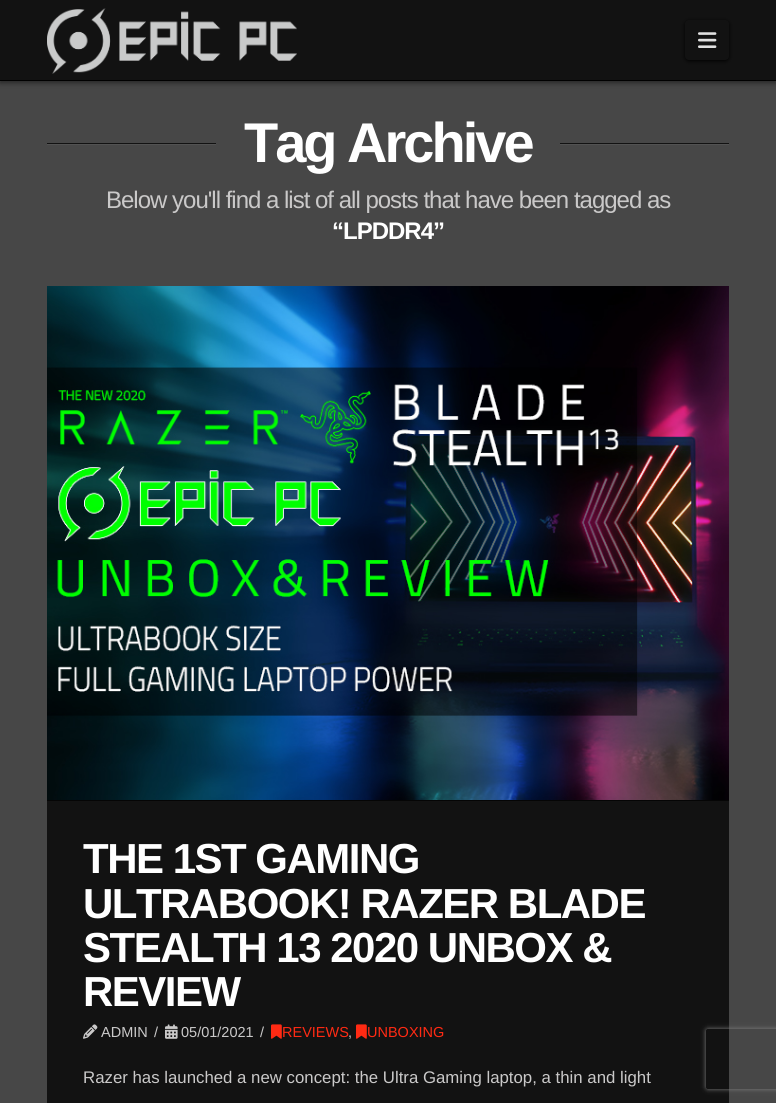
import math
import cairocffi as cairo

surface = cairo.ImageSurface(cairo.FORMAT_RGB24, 776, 1103)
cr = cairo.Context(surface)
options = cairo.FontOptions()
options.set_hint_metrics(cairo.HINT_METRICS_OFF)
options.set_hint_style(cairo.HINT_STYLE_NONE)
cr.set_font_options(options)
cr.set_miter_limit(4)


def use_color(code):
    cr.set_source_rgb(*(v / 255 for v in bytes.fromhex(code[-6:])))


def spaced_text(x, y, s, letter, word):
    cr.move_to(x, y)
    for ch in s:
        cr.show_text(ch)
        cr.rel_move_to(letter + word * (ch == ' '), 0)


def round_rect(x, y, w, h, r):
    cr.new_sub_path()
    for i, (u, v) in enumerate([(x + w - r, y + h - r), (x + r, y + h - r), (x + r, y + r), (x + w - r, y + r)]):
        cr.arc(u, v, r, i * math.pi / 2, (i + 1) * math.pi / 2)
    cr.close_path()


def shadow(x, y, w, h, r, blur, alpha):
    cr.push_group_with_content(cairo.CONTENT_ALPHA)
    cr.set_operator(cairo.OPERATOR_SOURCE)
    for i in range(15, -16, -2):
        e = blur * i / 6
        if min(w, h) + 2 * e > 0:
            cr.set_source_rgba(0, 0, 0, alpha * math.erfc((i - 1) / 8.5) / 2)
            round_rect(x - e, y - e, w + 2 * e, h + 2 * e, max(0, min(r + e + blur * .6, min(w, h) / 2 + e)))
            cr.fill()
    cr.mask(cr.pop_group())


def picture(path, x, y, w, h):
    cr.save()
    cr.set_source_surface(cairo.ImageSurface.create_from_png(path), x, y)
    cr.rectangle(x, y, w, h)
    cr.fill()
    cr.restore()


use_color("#474747")
cr.paint()
use_color("#000000")
shadow(0, 2, 776, 81, 0, 2.5, 0.47)
use_color("#121212")
cr.rectangle(0, 0, 776, 80)
cr.fill()
use_color("#000000")
cr.rectangle(0, 80, 776, 1)
cr.fill()
picture("img1.png", 47, 8, 250, 66)
use_color("#000000")
shadow(685, 21, 44, 40, 4, 2, 1)
use_color("#121212")
round_rect(685, 20, 44, 40, 4)
cr.fill()
picture("img2.png", 698, 32, 19, 16)
use_color("#525252")
cr.rectangle(47, 144, 169, 1)
cr.fill()
use_color("#121212")
cr.rectangle(47, 143, 169, 1)
cr.fill()
cr.select_font_face("Liberation Sans", cairo.FONT_SLANT_NORMAL, cairo.FONT_WEIGHT_BOLD)
cr.set_font_size(56)
use_color("#ffffff")
spaced_text(244, 162, "Tag Archive", -3, 0)
use_color("#525252")
cr.rectangle(560, 144, 169, 1)
cr.fill()
use_color("#121212")
cr.rectangle(560, 143, 169, 1)
cr.fill()
cr.select_font_face("Liberation Sans")
cr.set_font_size(24)
use_color("#cac9c9")
spaced_text(106, 208, "Below you'll find a list of all posts that have been tagged as", -1, 0)
cr.select_font_face("Liberation Sans", cairo.FONT_SLANT_NORMAL, cairo.FONT_WEIGHT_BOLD)
use_color("#ffffff")
spaced_text(332, 239, "“LPDDR4”", -1, 0)
use_color("#050505")
cr.rectangle(47, 800, 682, 1)
cr.fill()
picture("img3.png", 47, 286, 682, 514)
use_color("#121212")
cr.rectangle(47, 801, 682, 302)
cr.fill()
cr.set_font_size(42)
use_color("#ffffff")
spaced_text(83, 873, "THE 1ST GAMING", -1.5, 0)
spaced_text(83, 918, "ULTRABOOK! RAZER BLADE", -1.5, 0)
spaced_text(83, 962, "STEALTH 13 2020 UNBOX &", -1.5, 0)
spaced_text(83, 1006, "REVIEW", -1.5, 0)
picture("img4.png", 83, 1024, 15, 15)
cr.select_font_face("Liberation Sans")
cr.set_font_size(14.5)
use_color("#cac9c9")
cr.move_to(101, 1037)
cr.show_text("ADMIN")
cr.move_to(154, 1037)
cr.show_text("/")
picture("img5.png", 165, 1024, 13, 15)
cr.move_to(181, 1037)
cr.show_text("05/01/2021")
cr.move_to(260, 1037)
cr.show_text("/")
picture("img6.png", 271, 1024, 11, 15)
use_color("#ff2a13")
cr.move_to(282, 1037)
cr.show_text("REVIEWS")
use_color("#cac9c9")
cr.move_to(348, 1037)
cr.show_text(",")
picture("img6.png", 356, 1024, 11, 15)
use_color("#ff2a13")
cr.move_to(367, 1037)
cr.show_text("UNBOXING")
cr.set_font_size(16.8)
use_color("#cac9c9")
cr.move_to(83, 1083)
cr.show_text("Razer has launched a new concept: the Ultra Gaming laptop, a thin and light")
cr.save()
cr.set_fill_rule(cairo.FILL_RULE_EVEN_ODD)
cr.new_path()
cr.move_to(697, 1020)
cr.line_to(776, 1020)
cr.line_to(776, 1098)
cr.line_to(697, 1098)
cr.close_path()
cr.move_to(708, 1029)
cr.line_to(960, 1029)
cr.curve_to(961, 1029, 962, 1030, 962, 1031)
cr.line_to(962, 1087)
cr.curve_to(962, 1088, 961, 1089, 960, 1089)
cr.line_to(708, 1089)
cr.curve_to(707, 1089, 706, 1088, 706, 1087)
cr.line_to(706, 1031)
cr.curve_to(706, 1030, 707, 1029, 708, 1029)
cr.close_path()
cr.clip()
use_color("#808080")
shadow(706, 1029, 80, 60, 2, 2.5, 1)
cr.restore()
surface.write_to_png("result.png")
